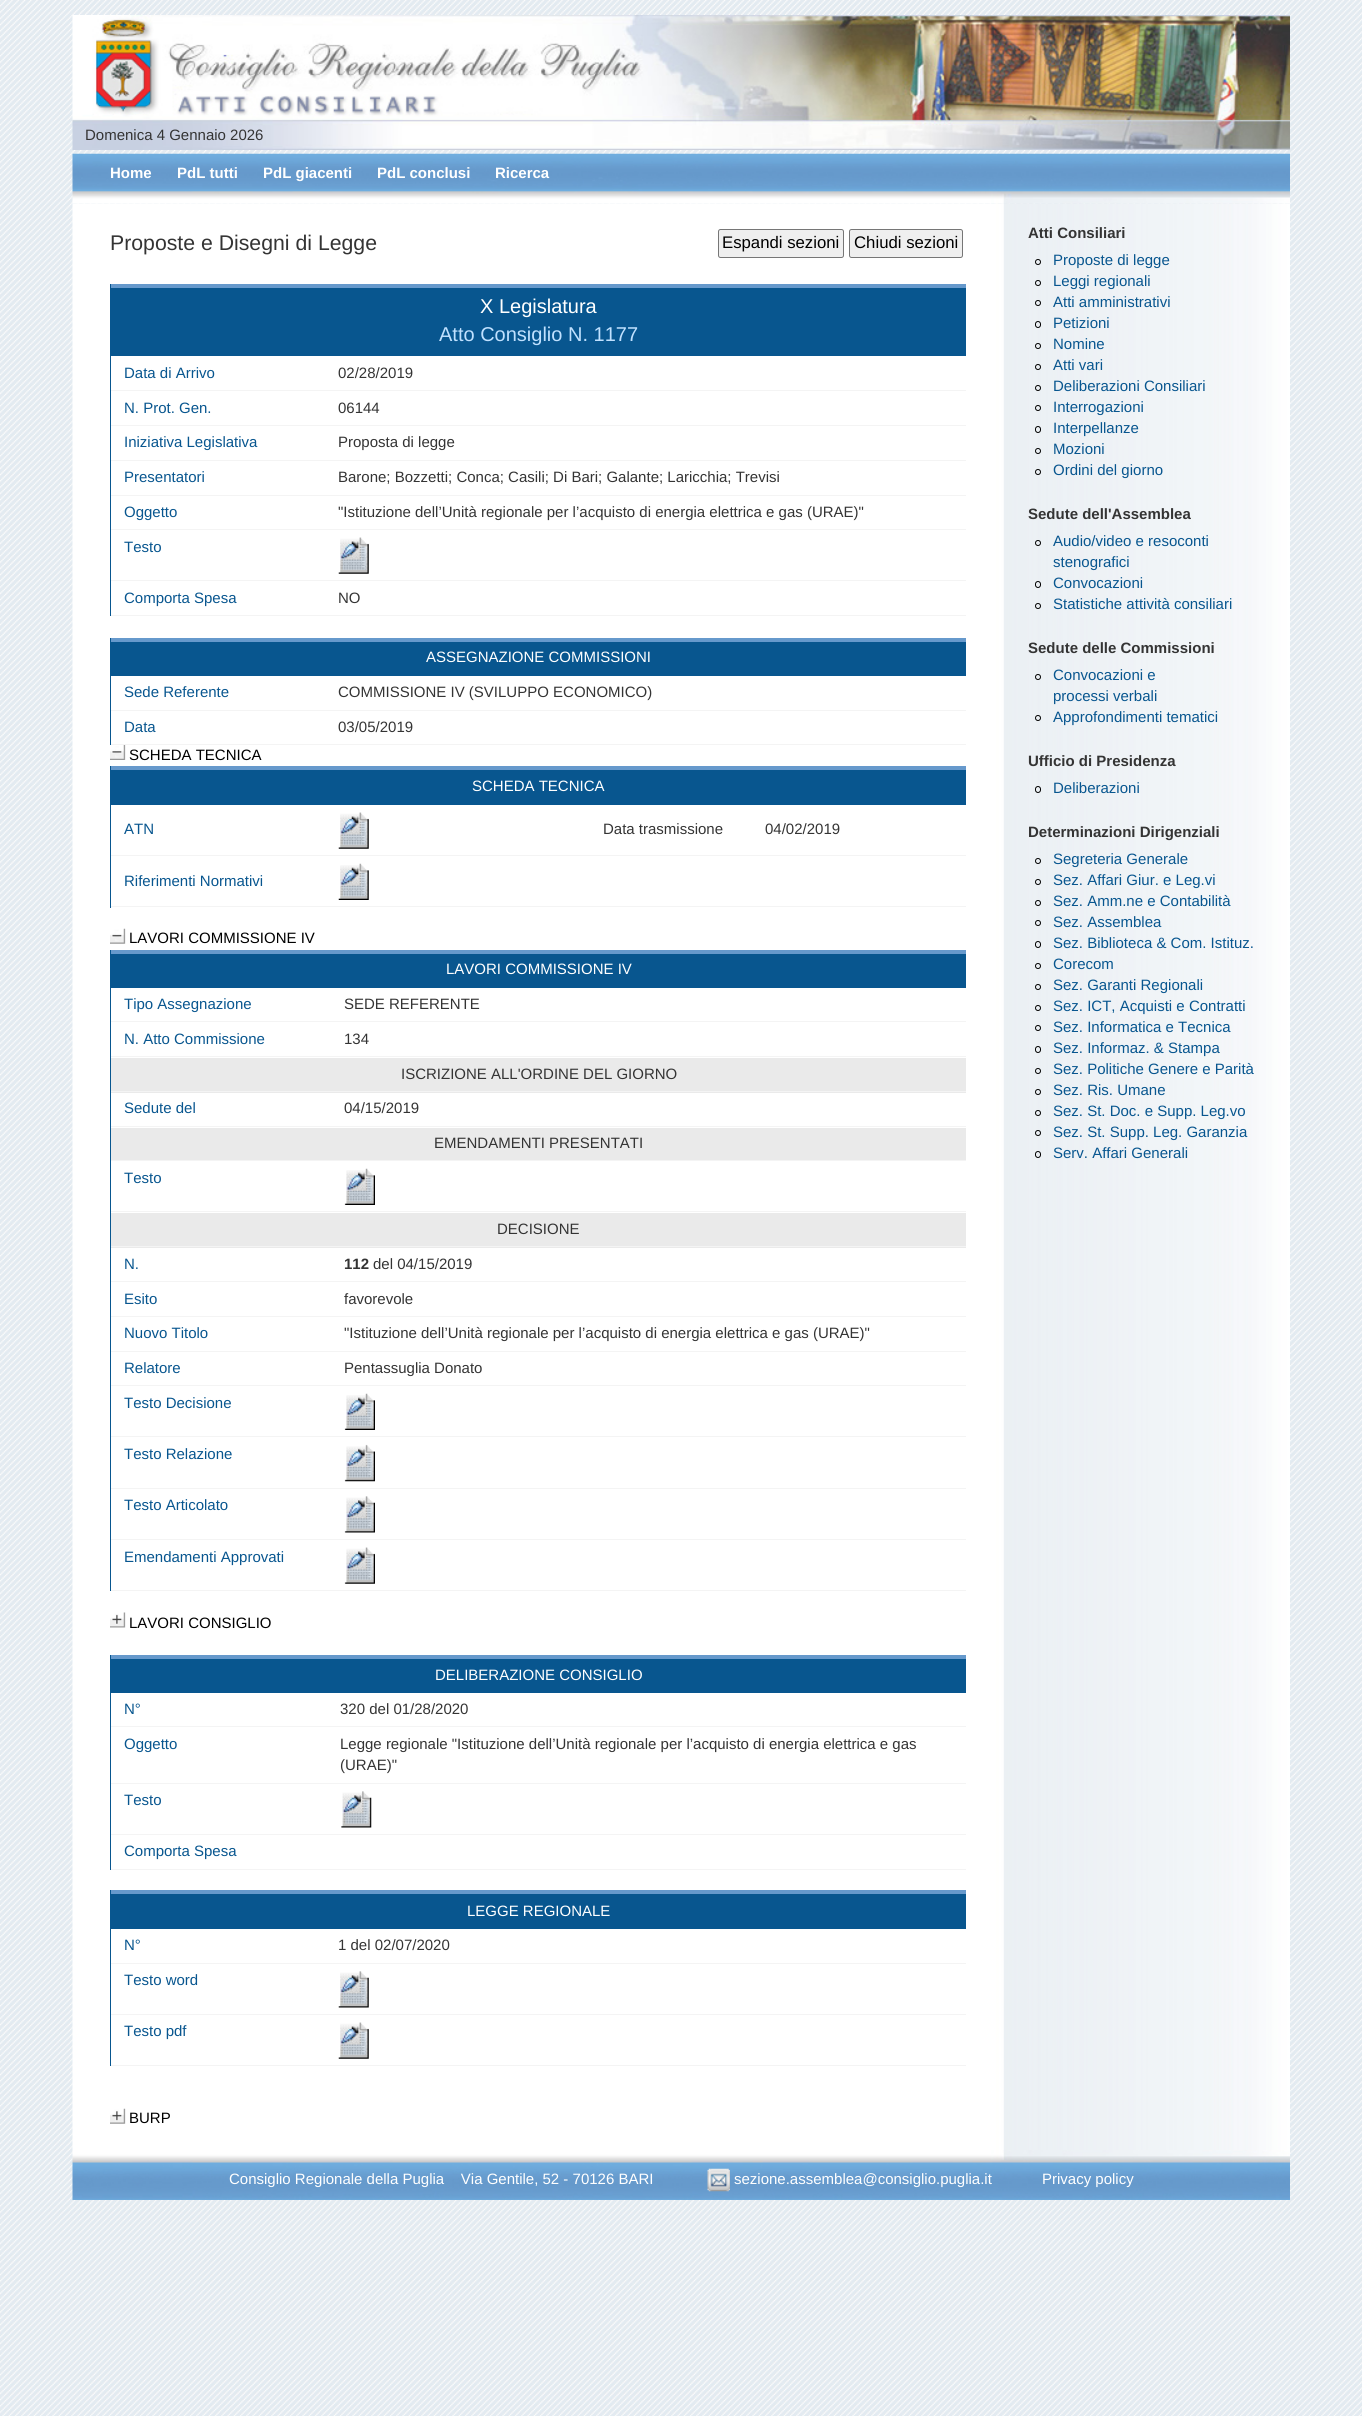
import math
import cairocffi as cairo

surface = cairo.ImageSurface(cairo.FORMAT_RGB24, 1362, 2416)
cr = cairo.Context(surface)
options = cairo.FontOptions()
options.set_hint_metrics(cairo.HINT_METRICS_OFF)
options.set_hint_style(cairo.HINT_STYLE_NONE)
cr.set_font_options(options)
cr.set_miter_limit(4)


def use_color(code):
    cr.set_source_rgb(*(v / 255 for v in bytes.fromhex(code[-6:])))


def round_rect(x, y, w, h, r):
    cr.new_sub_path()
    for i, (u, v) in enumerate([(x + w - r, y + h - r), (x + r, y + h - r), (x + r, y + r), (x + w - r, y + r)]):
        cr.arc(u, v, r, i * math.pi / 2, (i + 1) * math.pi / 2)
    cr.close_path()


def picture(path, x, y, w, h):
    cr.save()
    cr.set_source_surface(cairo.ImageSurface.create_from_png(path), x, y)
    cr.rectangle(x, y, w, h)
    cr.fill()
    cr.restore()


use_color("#ffffff")
cr.paint()
picture("img1.png", 0, 0, 1362, 2416)
picture("img2.png", 72, 15, 1218, 135)
cr.select_font_face("Liberation Sans")
cr.set_font_size(15)
use_color("#343434")
cr.move_to(85, 140)
cr.show_text("Domenica 4 Gennaio 2026")
picture("img3.png", 72, 153, 1218, 51)
cr.select_font_face("Liberation Sans", cairo.FONT_SLANT_NORMAL, cairo.FONT_WEIGHT_BOLD)
use_color("#ffffff")
cr.move_to(110, 178)
cr.show_text("Home")
cr.move_to(177, 178)
cr.show_text("PdL tutti")
cr.move_to(263, 178)
cr.show_text("PdL giacenti")
cr.move_to(377, 178)
cr.show_text("PdL conclusi")
cr.move_to(495, 178)
cr.show_text("Ricerca")
picture("img4.png", 72, 204, 1218, 1946)
cr.select_font_face("Liberation Sans")
cr.set_font_size(21.25)
use_color("#343434")
cr.move_to(110, 250)
cr.show_text("Proposte e Disegni di Legge")
use_color("#efefef")
round_rect(718.5, 229.5, 125, 28, 2)
cr.fill_preserve()
use_color("#767676")
cr.set_line_width(1)
cr.stroke()
cr.set_font_size(16.75)
use_color("#000000")
cr.move_to(722, 248)
cr.show_text("Espandi sezioni")
use_color("#efefef")
round_rect(849.5, 229.5, 113, 28, 2)
cr.fill_preserve()
use_color("#767676")
cr.stroke()
use_color("#000000")
cr.move_to(854, 248)
cr.show_text("Chiudi sezioni")
use_color("#08568f")
cr.rectangle(110, 284, 1, 332)
cr.fill()
cr.rectangle(111, 288, 855, 68)
cr.fill()
use_color("#6699cc")
cr.rectangle(111, 284, 855, 4)
cr.fill()
cr.set_font_size(20)
use_color("#ffffff")
cr.move_to(480, 313)
cr.show_text("X Legislatura")
use_color("#c0e1ff")
cr.move_to(439, 341)
cr.show_text("Atto Consiglio N. 1177")
use_color("#f4f4f4")
cr.rectangle(111, 390, 855, 1)
cr.fill()
cr.set_font_size(15)
use_color("#08568f")
cr.move_to(124, 378)
cr.show_text("Data di Arrivo")
use_color("#343434")
cr.move_to(338, 378)
cr.show_text("02/28/2019")
use_color("#f4f4f4")
cr.rectangle(111, 425, 855, 1)
cr.fill()
use_color("#08568f")
cr.move_to(124, 413)
cr.show_text("N. Prot. Gen.")
use_color("#343434")
cr.move_to(338, 413)
cr.show_text("06144")
use_color("#f4f4f4")
cr.rectangle(111, 460, 855, 1)
cr.fill()
use_color("#08568f")
cr.move_to(124, 447)
cr.show_text("Iniziativa Legislativa")
use_color("#343434")
cr.move_to(338, 447)
cr.show_text("Proposta di legge")
use_color("#f4f4f4")
cr.rectangle(111, 495, 855, 1)
cr.fill()
use_color("#08568f")
cr.move_to(124, 482)
cr.show_text("Presentatori")
use_color("#343434")
cr.move_to(338, 482)
cr.show_text("Barone; Bozzetti; Conca; Casili; Di Bari; Galante; Laricchia; Trevisi")
use_color("#f4f4f4")
cr.rectangle(111, 529, 855, 1)
cr.fill()
use_color("#08568f")
cr.move_to(124, 517)
cr.show_text("Oggetto")
use_color("#343434")
cr.move_to(338, 517)
cr.show_text("\"Istituzione dell’Unità regionale per l’acquisto di energia elettrica e gas (URAE)\"")
use_color("#f4f4f4")
cr.rectangle(111, 580, 855, 1)
cr.fill()
use_color("#08568f")
cr.move_to(124, 552)
cr.show_text("Testo")
picture("img5.png", 338, 537, 31, 37)
use_color("#f4f4f4")
cr.rectangle(111, 615, 855, 1)
cr.fill()
use_color("#08568f")
cr.move_to(124, 603)
cr.show_text("Comporta Spesa")
use_color("#343434")
cr.move_to(338, 603)
cr.show_text("NO")
use_color("#08568f")
cr.rectangle(110, 638, 1, 107)
cr.fill()
cr.rectangle(111, 642, 855, 34)
cr.fill()
use_color("#6699cc")
cr.rectangle(111, 638, 855, 4)
cr.fill()
use_color("#ffffff")
cr.move_to(426, 662)
cr.show_text("ASSEGNAZIONE COMMISSIONI")
use_color("#f4f4f4")
cr.rectangle(111, 710, 855, 1)
cr.fill()
use_color("#08568f")
cr.move_to(124, 697)
cr.show_text("Sede Referente")
use_color("#343434")
cr.move_to(338, 697)
cr.show_text("COMMISSIONE IV (SVILUPPO ECONOMICO)")
use_color("#f4f4f4")
cr.rectangle(111, 744, 855, 1)
cr.fill()
use_color("#08568f")
cr.move_to(124, 732)
cr.show_text("Data")
use_color("#343434")
cr.move_to(338, 732)
cr.show_text("03/05/2019")
picture("img6.png", 110, 745, 16, 15)
use_color("#000000")
cr.move_to(129, 760)
cr.show_text("SCHEDA TECNICA")
use_color("#08568f")
cr.rectangle(110, 766, 1, 142)
cr.fill()
cr.rectangle(111, 770, 855, 35)
cr.fill()
use_color("#6699cc")
cr.rectangle(111, 766, 855, 4)
cr.fill()
use_color("#ffffff")
cr.move_to(472, 791)
cr.show_text("SCHEDA TECNICA")
use_color("#f4f4f4")
cr.rectangle(111, 855, 855, 1)
cr.fill()
use_color("#08568f")
cr.move_to(124, 834)
cr.show_text("ATN")
picture("img5.png", 338, 812, 31, 37)
use_color("#343434")
cr.move_to(603, 834)
cr.show_text("Data trasmissione")
cr.move_to(765, 834)
cr.show_text("04/02/2019")
use_color("#f4f4f4")
cr.rectangle(111, 906, 855, 1)
cr.fill()
use_color("#08568f")
cr.move_to(124, 886)
cr.show_text("Riferimenti Normativi")
picture("img7.png", 338, 863, 31, 37)
picture("img8.png", 110, 928, 16, 16)
use_color("#000000")
cr.move_to(129, 943)
cr.show_text("LAVORI COMMISSIONE IV")
use_color("#08568f")
cr.rectangle(110, 950, 1, 641)
cr.fill()
cr.rectangle(111, 954, 855, 34)
cr.fill()
use_color("#6699cc")
cr.rectangle(111, 950, 855, 4)
cr.fill()
use_color("#ffffff")
cr.move_to(446, 974)
cr.show_text("LAVORI COMMISSIONE IV")
use_color("#f4f4f4")
cr.rectangle(111, 1021, 855, 1)
cr.fill()
use_color("#08568f")
cr.move_to(124, 1009)
cr.show_text("Tipo Assegnazione")
use_color("#343434")
cr.move_to(344, 1009)
cr.show_text("SEDE REFERENTE")
use_color("#f4f4f4")
cr.rectangle(111, 1056, 855, 1)
cr.fill()
use_color("#08568f")
cr.move_to(124, 1044)
cr.show_text("N. Atto Commissione")
use_color("#343434")
cr.move_to(344, 1044)
cr.show_text("134")
use_color("#eaeaea")
cr.rectangle(111, 1058, 855, 35)
cr.fill()
use_color("#f4f4f4")
cr.rectangle(111, 1091, 855, 1)
cr.fill()
use_color("#343434")
cr.move_to(401, 1079)
cr.show_text("ISCRIZIONE ALL'ORDINE DEL GIORNO")
use_color("#f4f4f4")
cr.rectangle(111, 1126, 855, 1)
cr.fill()
use_color("#08568f")
cr.move_to(124, 1113)
cr.show_text("Sedute del")
use_color("#343434")
cr.move_to(344, 1113)
cr.show_text("04/15/2019")
use_color("#eaeaea")
cr.rectangle(111, 1128, 855, 32)
cr.fill()
use_color("#f4f4f4")
cr.rectangle(111, 1160, 855, 1)
cr.fill()
use_color("#343434")
cr.move_to(434, 1148)
cr.show_text("EMENDAMENTI PRESENTATI")
use_color("#f4f4f4")
cr.rectangle(111, 1211, 855, 1)
cr.fill()
use_color("#08568f")
cr.move_to(124, 1183)
cr.show_text("Testo")
picture("img9.png", 344, 1168, 31, 37)
use_color("#eaeaea")
cr.rectangle(111, 1213, 855, 35)
cr.fill()
use_color("#f4f4f4")
cr.rectangle(111, 1246, 855, 1)
cr.fill()
use_color("#343434")
cr.move_to(497, 1234)
cr.show_text("DECISIONE")
use_color("#f4f4f4")
cr.rectangle(111, 1281, 855, 1)
cr.fill()
use_color("#08568f")
cr.move_to(124, 1269)
cr.show_text("N.")
cr.select_font_face("Liberation Sans", cairo.FONT_SLANT_NORMAL, cairo.FONT_WEIGHT_BOLD)
use_color("#343434")
cr.move_to(344, 1269)
cr.show_text("112")
cr.select_font_face("Liberation Sans")
cr.move_to(373, 1269)
cr.show_text("del 04/15/2019")
use_color("#f4f4f4")
cr.rectangle(111, 1316, 855, 1)
cr.fill()
use_color("#08568f")
cr.move_to(124, 1304)
cr.show_text("Esito")
use_color("#343434")
cr.move_to(344, 1304)
cr.show_text("favorevole")
use_color("#f4f4f4")
cr.rectangle(111, 1351, 855, 1)
cr.fill()
use_color("#08568f")
cr.move_to(124, 1338)
cr.show_text("Nuovo Titolo")
use_color("#343434")
cr.move_to(344, 1338)
cr.show_text("\"Istituzione dell’Unità regionale per l’acquisto di energia elettrica e gas (URAE)\"")
use_color("#f4f4f4")
cr.rectangle(111, 1385, 855, 1)
cr.fill()
use_color("#08568f")
cr.move_to(124, 1373)
cr.show_text("Relatore")
use_color("#343434")
cr.move_to(344, 1373)
cr.show_text("Pentassuglia Donato")
use_color("#f4f4f4")
cr.rectangle(111, 1436, 855, 1)
cr.fill()
use_color("#08568f")
cr.move_to(124, 1408)
cr.show_text("Testo Decisione")
picture("img9.png", 344, 1393, 31, 37)
use_color("#f4f4f4")
cr.rectangle(111, 1488, 855, 1)
cr.fill()
use_color("#08568f")
cr.move_to(124, 1459)
cr.show_text("Testo Relazione")
picture("img10.png", 344, 1444, 31, 38)
use_color("#f4f4f4")
cr.rectangle(111, 1539, 855, 1)
cr.fill()
use_color("#08568f")
cr.move_to(124, 1510)
cr.show_text("Testo Articolato")
picture("img11.png", 344, 1496, 31, 37)
use_color("#f4f4f4")
cr.rectangle(111, 1590, 855, 1)
cr.fill()
use_color("#08568f")
cr.move_to(124, 1562)
cr.show_text("Emendamenti Approvati")
picture("img12.png", 344, 1547, 31, 37)
picture("img13.png", 110, 1612, 16, 16)
use_color("#000000")
cr.move_to(129, 1628)
cr.show_text("LAVORI CONSIGLIO")
use_color("#08568f")
cr.rectangle(110, 1655, 1, 215)
cr.fill()
cr.rectangle(111, 1659, 855, 34)
cr.fill()
use_color("#6699cc")
cr.rectangle(111, 1655, 855, 4)
cr.fill()
use_color("#ffffff")
cr.move_to(435, 1680)
cr.show_text("DELIBERAZIONE CONSIGLIO")
use_color("#f4f4f4")
cr.rectangle(111, 1726, 855, 1)
cr.fill()
use_color("#08568f")
cr.move_to(124, 1714)
cr.show_text("N°")
use_color("#343434")
cr.move_to(340, 1714)
cr.show_text("320 del 01/28/2020")
use_color("#f4f4f4")
cr.rectangle(111, 1783, 855, 1)
cr.fill()
use_color("#08568f")
cr.move_to(124, 1749)
cr.show_text("Oggetto")
use_color("#343434")
cr.move_to(340, 1749)
cr.show_text("Legge regionale \"Istituzione dell’Unità regionale per l’acquisto di energia elettrica e gas")
cr.move_to(340, 1770)
cr.show_text("(URAE)\"")
use_color("#f4f4f4")
cr.rectangle(111, 1834, 855, 1)
cr.fill()
use_color("#08568f")
cr.move_to(124, 1805)
cr.show_text("Testo")
picture("img14.png", 341, 1791, 31, 37)
use_color("#f4f4f4")
cr.rectangle(111, 1869, 855, 1)
cr.fill()
use_color("#08568f")
cr.move_to(124, 1856)
cr.show_text("Comporta Spesa")
cr.rectangle(110, 1890, 1, 176)
cr.fill()
cr.rectangle(111, 1894, 855, 35)
cr.fill()
use_color("#6699cc")
cr.rectangle(111, 1890, 855, 4)
cr.fill()
use_color("#ffffff")
cr.move_to(467, 1916)
cr.show_text("LEGGE REGIONALE")
use_color("#f4f4f4")
cr.rectangle(111, 1963, 855, 1)
cr.fill()
use_color("#08568f")
cr.move_to(124, 1950)
cr.show_text("N°")
use_color("#343434")
cr.move_to(338, 1950)
cr.show_text("1 del 02/07/2020")
use_color("#f4f4f4")
cr.rectangle(111, 2014, 855, 1)
cr.fill()
use_color("#08568f")
cr.move_to(124, 1985)
cr.show_text("Testo word")
picture("img15.png", 338, 1971, 31, 37)
use_color("#f4f4f4")
cr.rectangle(111, 2065, 855, 1)
cr.fill()
use_color("#08568f")
cr.move_to(124, 2036)
cr.show_text("Testo pdf")
picture("img5.png", 338, 2022, 31, 37)
picture("img16.png", 110, 2108, 16, 16)
use_color("#000000")
cr.move_to(129, 2123)
cr.show_text("BURP")
cr.select_font_face("Liberation Sans", cairo.FONT_SLANT_NORMAL, cairo.FONT_WEIGHT_BOLD)
use_color("#343434")
cr.move_to(1028, 238)
cr.show_text("Atti Consiliari")
cr.new_path()
cr.arc(1038, 262, 2.5, 0, 2 * math.pi)
use_color("#000000")
cr.stroke()
cr.select_font_face("Liberation Sans")
use_color("#08568f")
cr.move_to(1053, 265)
cr.show_text("Proposte di legge")
cr.new_path()
cr.arc(1038, 283, 2.5, 0, 2 * math.pi)
use_color("#000000")
cr.stroke()
use_color("#08568f")
cr.move_to(1053, 286)
cr.show_text("Leggi regionali")
cr.new_path()
cr.arc(1038, 303, 2.5, 0, 2 * math.pi)
use_color("#000000")
cr.stroke()
use_color("#08568f")
cr.move_to(1053, 307)
cr.show_text("Atti amministrativi")
round_rect(1035.5, 321.5, 5, 6, 2.5)
use_color("#000000")
cr.stroke()
use_color("#08568f")
cr.move_to(1053, 328)
cr.show_text("Petizioni")
cr.new_path()
cr.arc(1038, 346, 2.5, 0, 2 * math.pi)
use_color("#000000")
cr.stroke()
use_color("#08568f")
cr.move_to(1053, 349)
cr.show_text("Nomine")
cr.new_path()
cr.arc(1038, 367, 2.5, 0, 2 * math.pi)
use_color("#000000")
cr.stroke()
use_color("#08568f")
cr.move_to(1053, 370)
cr.show_text("Atti vari")
cr.new_path()
cr.arc(1038, 388, 2.5, 0, 2 * math.pi)
use_color("#000000")
cr.stroke()
use_color("#08568f")
cr.move_to(1053, 391)
cr.show_text("Deliberazioni Consiliari")
cr.new_path()
cr.arc(1038, 408, 2.5, 0, 2 * math.pi)
use_color("#000000")
cr.stroke()
use_color("#08568f")
cr.move_to(1053, 412)
cr.show_text("Interrogazioni")
round_rect(1035.5, 426.5, 5, 6, 2.5)
use_color("#000000")
cr.stroke()
use_color("#08568f")
cr.move_to(1053, 433)
cr.show_text("Interpellanze")
cr.new_path()
cr.arc(1038, 451, 2.5, 0, 2 * math.pi)
use_color("#000000")
cr.stroke()
use_color("#08568f")
cr.move_to(1053, 454)
cr.show_text("Mozioni")
cr.new_path()
cr.arc(1038, 472, 2.5, 0, 2 * math.pi)
use_color("#000000")
cr.stroke()
use_color("#08568f")
cr.move_to(1053, 475)
cr.show_text("Ordini del giorno")
cr.select_font_face("Liberation Sans", cairo.FONT_SLANT_NORMAL, cairo.FONT_WEIGHT_BOLD)
use_color("#343434")
cr.move_to(1028, 519)
cr.show_text("Sedute dell'Assemblea")
cr.new_path()
cr.arc(1038, 543, 2.5, 0, 2 * math.pi)
use_color("#000000")
cr.stroke()
cr.select_font_face("Liberation Sans")
use_color("#08568f")
cr.move_to(1053, 546)
cr.show_text("Audio/video e resoconti")
cr.move_to(1053, 567)
cr.show_text("stenografici")
round_rect(1035.5, 581.5, 5, 6, 2.5)
use_color("#000000")
cr.stroke()
use_color("#08568f")
cr.move_to(1053, 588)
cr.show_text("Convocazioni")
cr.new_path()
cr.arc(1038, 606, 2.5, 0, 2 * math.pi)
use_color("#000000")
cr.stroke()
use_color("#08568f")
cr.move_to(1053, 609)
cr.show_text("Statistiche attività consiliari")
cr.select_font_face("Liberation Sans", cairo.FONT_SLANT_NORMAL, cairo.FONT_WEIGHT_BOLD)
use_color("#343434")
cr.move_to(1028, 653)
cr.show_text("Sedute delle Commissioni")
cr.new_path()
cr.arc(1038, 677, 2.5, 0, 2 * math.pi)
use_color("#000000")
cr.stroke()
cr.select_font_face("Liberation Sans")
use_color("#08568f")
cr.move_to(1053, 680)
cr.show_text("Convocazioni e")
cr.move_to(1053, 701)
cr.show_text("processi verbali")
cr.new_path()
cr.arc(1038, 718, 2.5, 0, 2 * math.pi)
use_color("#000000")
cr.stroke()
use_color("#08568f")
cr.move_to(1053, 722)
cr.show_text("Approfondimenti tematici")
cr.select_font_face("Liberation Sans", cairo.FONT_SLANT_NORMAL, cairo.FONT_WEIGHT_BOLD)
use_color("#343434")
cr.move_to(1028, 766)
cr.show_text("Ufficio di Presidenza")
round_rect(1035.5, 786.5, 5, 6, 2.5)
use_color("#000000")
cr.stroke()
cr.select_font_face("Liberation Sans")
use_color("#08568f")
cr.move_to(1053, 793)
cr.show_text("Deliberazioni")
cr.select_font_face("Liberation Sans", cairo.FONT_SLANT_NORMAL, cairo.FONT_WEIGHT_BOLD)
use_color("#343434")
cr.move_to(1028, 837)
cr.show_text("Determinazioni Dirigenziali")
cr.new_path()
cr.arc(1038, 861, 2.5, 0, 2 * math.pi)
use_color("#000000")
cr.stroke()
cr.select_font_face("Liberation Sans")
use_color("#08568f")
cr.move_to(1053, 864)
cr.show_text("Segreteria Generale")
cr.new_path()
cr.arc(1038, 882, 2.5, 0, 2 * math.pi)
use_color("#000000")
cr.stroke()
use_color("#08568f")
cr.move_to(1053, 885)
cr.show_text("Sez. Affari Giur. e Leg.vi")
cr.new_path()
cr.arc(1038, 903, 2.5, 0, 2 * math.pi)
use_color("#000000")
cr.stroke()
use_color("#08568f")
cr.move_to(1053, 906)
cr.show_text("Sez. Amm.ne e Contabilità")
cr.new_path()
cr.arc(1038, 923, 2.5, 0, 2 * math.pi)
use_color("#000000")
cr.stroke()
use_color("#08568f")
cr.move_to(1053, 927)
cr.show_text("Sez. Assemblea")
round_rect(1035.5, 941.5, 5, 6, 2.5)
use_color("#000000")
cr.stroke()
use_color("#08568f")
cr.move_to(1053, 948)
cr.show_text("Sez. Biblioteca & Com. Istituz.")
cr.new_path()
cr.arc(1038, 966, 2.5, 0, 2 * math.pi)
use_color("#000000")
cr.stroke()
use_color("#08568f")
cr.move_to(1053, 969)
cr.show_text("Corecom")
cr.new_path()
cr.arc(1038, 987, 2.5, 0, 2 * math.pi)
use_color("#000000")
cr.stroke()
use_color("#08568f")
cr.move_to(1053, 990)
cr.show_text("Sez. Garanti Regionali")
cr.new_path()
cr.arc(1038, 1008, 2.5, 0, 2 * math.pi)
use_color("#000000")
cr.stroke()
use_color("#08568f")
cr.move_to(1053, 1011)
cr.show_text("Sez. ICT, Acquisti e Contratti")
cr.new_path()
cr.arc(1038, 1028, 2.5, 0, 2 * math.pi)
use_color("#000000")
cr.stroke()
use_color("#08568f")
cr.move_to(1053, 1032)
cr.show_text("Sez. Informatica e Tecnica")
round_rect(1035.5, 1046.5, 5, 6, 2.5)
use_color("#000000")
cr.stroke()
use_color("#08568f")
cr.move_to(1053, 1053)
cr.show_text("Sez. Informaz. & Stampa")
cr.new_path()
cr.arc(1038, 1071, 2.5, 0, 2 * math.pi)
use_color("#000000")
cr.stroke()
use_color("#08568f")
cr.move_to(1053, 1074)
cr.show_text("Sez. Politiche Genere e Parità")
cr.new_path()
cr.arc(1038, 1092, 2.5, 0, 2 * math.pi)
use_color("#000000")
cr.stroke()
use_color("#08568f")
cr.move_to(1053, 1095)
cr.show_text("Sez. Ris. Umane")
cr.new_path()
cr.arc(1038, 1113, 2.5, 0, 2 * math.pi)
use_color("#000000")
cr.stroke()
use_color("#08568f")
cr.move_to(1053, 1116)
cr.show_text("Sez. St. Doc. e Supp. Leg.vo")
cr.new_path()
cr.arc(1038, 1133, 2.5, 0, 2 * math.pi)
use_color("#000000")
cr.stroke()
use_color("#08568f")
cr.move_to(1053, 1137)
cr.show_text("Sez. St. Supp. Leg. Garanzia")
round_rect(1035.5, 1151.5, 5, 6, 2.5)
use_color("#000000")
cr.stroke()
use_color("#08568f")
cr.move_to(1053, 1158)
cr.show_text("Serv. Affari Generali")
picture("img17.png", 72, 2150, 1218, 50)
use_color("#ffffff")
cr.move_to(229, 2184)
cr.show_text("Consiglio Regionale della Puglia    Via Gentile, 52 - 70126 BARI")
picture("img18.png", 707, 2168, 23, 24)
cr.move_to(734, 2184)
cr.show_text("sezione.assemblea@consiglio.puglia.it")
cr.move_to(1042, 2184)
cr.show_text("Privacy policy")
surface.write_to_png("result.png")
